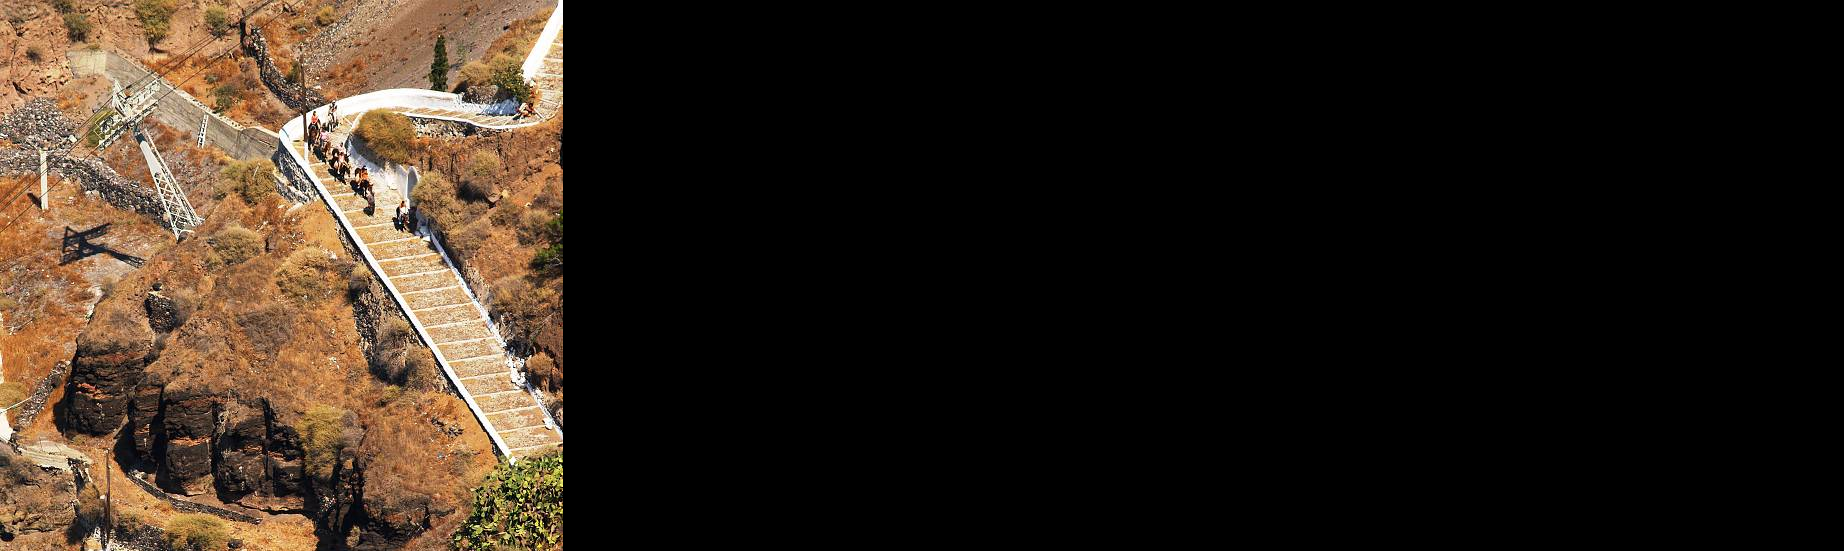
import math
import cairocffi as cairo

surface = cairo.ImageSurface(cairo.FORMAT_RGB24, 1844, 551)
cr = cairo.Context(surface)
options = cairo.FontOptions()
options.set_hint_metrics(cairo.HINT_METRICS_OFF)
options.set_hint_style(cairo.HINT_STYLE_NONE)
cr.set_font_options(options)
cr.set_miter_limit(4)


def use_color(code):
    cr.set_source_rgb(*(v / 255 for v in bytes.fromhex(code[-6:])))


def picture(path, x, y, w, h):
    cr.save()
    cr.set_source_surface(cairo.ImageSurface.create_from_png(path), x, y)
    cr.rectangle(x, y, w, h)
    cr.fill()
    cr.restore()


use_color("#000000")
cr.paint()
picture("img1.png", 0, 0, 563, 551)
surface.write_to_png("result.png")
